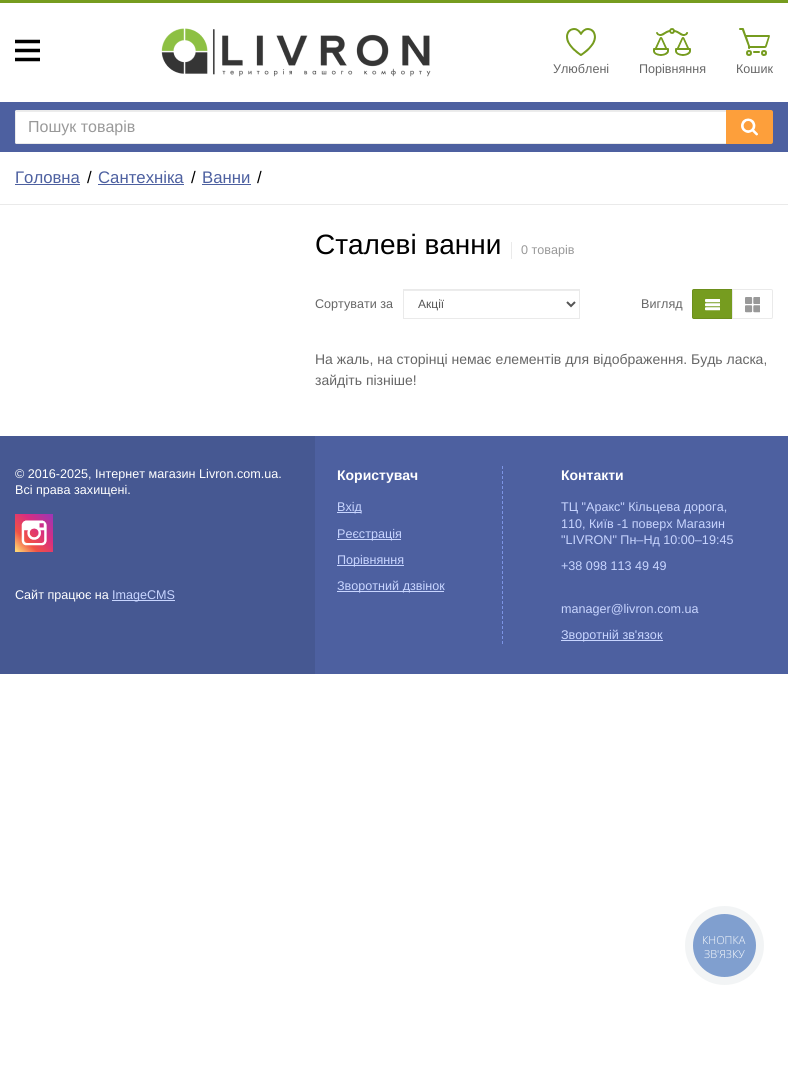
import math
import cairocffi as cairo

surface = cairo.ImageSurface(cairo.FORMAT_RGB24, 788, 1068)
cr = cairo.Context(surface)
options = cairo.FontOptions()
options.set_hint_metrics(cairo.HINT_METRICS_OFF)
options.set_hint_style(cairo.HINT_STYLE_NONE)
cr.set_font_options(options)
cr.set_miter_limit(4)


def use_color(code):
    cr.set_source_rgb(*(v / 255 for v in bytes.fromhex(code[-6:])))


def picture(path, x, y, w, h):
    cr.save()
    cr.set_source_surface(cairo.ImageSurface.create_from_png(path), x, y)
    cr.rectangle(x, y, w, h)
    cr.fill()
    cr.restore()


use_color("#ffffff")
cr.paint()
use_color("#769c1f")
cr.rectangle(0, 0, 788, 3)
cr.fill()
picture("img1.png", 15, 39, 25, 23)
picture("img2.png", 161, 28, 270, 49)
picture("img3.png", 566, 28, 30, 28)
cr.select_font_face("Liberation Sans")
cr.set_font_size(12.6)
use_color("#666666")
cr.move_to(553, 73)
cr.show_text("Улюблені")
picture("img4.png", 653, 28, 38, 28)
cr.move_to(639, 73)
cr.show_text("Порівняння")
picture("img5.png", 739, 28, 31, 28)
cr.move_to(736, 73)
cr.show_text("Кошик")
use_color("#4d60a0")
cr.rectangle(0, 102, 788, 50)
cr.fill()
use_color("#ffffff")
cr.new_path()
cr.move_to(17, 110)
cr.line_to(727, 110)
cr.line_to(727, 144)
cr.line_to(17, 144)
cr.curve_to(16, 144, 15, 143, 15, 142)
cr.line_to(15, 112)
cr.curve_to(15, 111, 16, 110, 17, 110)
cr.close_path()
cr.fill()
use_color("#ececec")
cr.new_path()
cr.move_to(17, 112)
cr.line_to(726, 112)
cr.line_to(726, 111)
cr.line_to(17, 111)
cr.curve_to(16, 111, 16, 112, 16, 113)
cr.curve_to(16, 112, 16, 112, 17, 112)
cr.close_path()
cr.fill()
cr.new_path()
cr.move_to(17, 110.5)
cr.line_to(726.5, 110.5)
cr.line_to(726.5, 143.5)
cr.line_to(17, 143.5)
cr.curve_to(16, 143.5, 15.5, 143, 15.5, 142)
cr.line_to(15.5, 112)
cr.curve_to(15.5, 111, 16, 110.5, 17, 110.5)
cr.close_path()
use_color("#eaeaea")
cr.set_line_width(1)
cr.stroke()
cr.set_font_size(16)
use_color("#999999")
cr.move_to(28, 132)
cr.show_text("Пошук товарів")
use_color("#fd9f3b")
cr.new_path()
cr.move_to(726, 110)
cr.line_to(771, 110)
cr.curve_to(772, 110, 773, 111, 773, 112)
cr.line_to(773, 142)
cr.curve_to(773, 143, 772, 144, 771, 144)
cr.line_to(726, 144)
cr.close_path()
cr.fill()
picture("img6.png", 741, 118, 17, 18)
use_color("#eaeaea")
cr.rectangle(0, 204, 788, 1)
cr.fill()
cr.set_font_size(16.75)
use_color("#4d60a0")
cr.move_to(15, 183)
cr.show_text("Головна")
cr.rectangle(15, 184, 65, 1)
cr.fill()
use_color("#000000")
cr.move_to(87, 183)
cr.show_text("/")
use_color("#4d60a0")
cr.move_to(98, 183)
cr.show_text("Сантехніка")
cr.rectangle(98, 184, 86, 1)
cr.fill()
use_color("#000000")
cr.move_to(191, 183)
cr.show_text("/")
use_color("#4d60a0")
cr.move_to(202, 183)
cr.show_text("Ванни")
cr.rectangle(202, 184, 49, 1)
cr.fill()
use_color("#000000")
cr.move_to(257, 183)
cr.show_text("/")
cr.set_font_size(28)
cr.move_to(315, 254)
cr.show_text("Сталеві ванни")
use_color("#eaeaea")
cr.rectangle(511, 242, 1, 17)
cr.fill()
cr.set_font_size(12.6)
use_color("#999999")
cr.move_to(521, 254)
cr.show_text("0 товарів")
use_color("#666666")
cr.move_to(315, 308)
cr.show_text("Сортувати за")
use_color("#ececec")
cr.rectangle(404, 290, 175, 1)
cr.fill()
cr.rectangle(403.5, 289.5, 176, 29)
use_color("#eaeaea")
cr.stroke()
cr.new_path()
cr.move_to(567, 302)
cr.line_to(571, 306)
cr.line_to(575, 302)
use_color("#555555")
cr.set_line_width(2)
cr.stroke()
cr.set_font_size(12)
cr.move_to(418, 308)
cr.show_text("Акції")
cr.set_font_size(12.6)
use_color("#666666")
cr.move_to(641, 308)
cr.show_text("Вигляд")
use_color("#769c1f")
cr.new_path()
cr.move_to(694, 289.5)
cr.line_to(732.5, 289.5)
cr.line_to(732.5, 318.5)
cr.line_to(694, 318.5)
cr.curve_to(693, 318.5, 692.5, 318, 692.5, 317)
cr.line_to(692.5, 291)
cr.curve_to(692.5, 290, 693, 289.5, 694, 289.5)
cr.close_path()
cr.fill_preserve()
use_color("#6c8f1c")
cr.set_line_width(1)
cr.stroke()
picture("img7.png", 705, 299, 15, 12)
use_color("#ffffff")
cr.new_path()
cr.move_to(732.5, 289.5)
cr.line_to(771, 289.5)
cr.curve_to(772, 289.5, 772.5, 290, 772.5, 291)
cr.line_to(772.5, 317)
cr.curve_to(772.5, 318, 772, 318.5, 771, 318.5)
cr.line_to(732.5, 318.5)
cr.close_path()
cr.fill_preserve()
use_color("#eaeaea")
cr.stroke()
picture("img8.png", 745, 297, 15, 16)
cr.set_font_size(14)
use_color("#666666")
cr.move_to(315, 364)
cr.show_text("На жаль, на сторінці немає елементів для відображення. Будь ласка,")
cr.move_to(315, 385)
cr.show_text("зайдіть пізніше!")
use_color("#4d60a0")
cr.rectangle(315, 436, 473, 238)
cr.fill()
use_color("#465892")
cr.rectangle(0, 436, 315, 238)
cr.fill()
cr.set_font_size(12.6)
use_color("#ffffff")
cr.move_to(15, 478)
cr.show_text("© 2016-2025, Інтернет магазин Livron.com.ua.")
cr.move_to(15, 494)
cr.show_text("Всі права захищені.")
gradient = cairo.LinearGradient(15, 552, 53, 514)
gradient.add_color_stop_rgba(0.04, 0.996, 0.827, 0.451, 1)
gradient.add_color_stop_rgba(0.3, 0.945, 0.322, 0.271, 1)
gradient.add_color_stop_rgba(0.62, 0.851, 0.18, 0.498, 1)
gradient.add_color_stop_rgba(1, 0.608, 0.212, 0.718, 1)
gradient.add_color_stop_rgba(1, 0.318, 0.369, 0.812, 1)
cr.set_source(gradient)
cr.rectangle(15, 514, 38, 38)
cr.fill()
picture("img9.png", 21, 520, 26, 26)
use_color("#ffffff")
cr.move_to(15, 599)
cr.show_text("Сайт працює на")
use_color("#c8d5ff")
cr.rectangle(112, 600, 63, 1)
cr.fill()
cr.move_to(112, 599)
cr.show_text("ImageCMS")
cr.select_font_face("Liberation Sans", cairo.FONT_SLANT_NORMAL, cairo.FONT_WEIGHT_BOLD)
cr.set_font_size(14)
use_color("#ffffff")
cr.move_to(337, 480)
cr.show_text("Користувач")
use_color("#c8d5ff")
cr.rectangle(337, 512, 24, 1)
cr.fill()
cr.select_font_face("Liberation Sans")
cr.set_font_size(12.6)
cr.move_to(337, 511)
cr.show_text("Вхід")
cr.rectangle(337, 539, 64, 1)
cr.fill()
cr.move_to(337, 538)
cr.show_text("Реєстрація")
cr.rectangle(337, 565, 67, 1)
cr.fill()
cr.move_to(337, 564)
cr.show_text("Порівняння")
cr.rectangle(337, 591, 107, 1)
cr.fill()
cr.move_to(337, 590)
cr.show_text("Зворотний дзвінок")
cr.new_path()
cr.move_to(502.5, 466)
cr.line_to(502.5, 644)
use_color("#7c94e5")
cr.set_dash([3, 2])
cr.stroke()
cr.select_font_face("Liberation Sans", cairo.FONT_SLANT_NORMAL, cairo.FONT_WEIGHT_BOLD)
cr.set_font_size(14)
use_color("#ffffff")
cr.move_to(561, 480)
cr.show_text("Контакти")
cr.select_font_face("Liberation Sans")
cr.set_font_size(12.6)
use_color("#c8d5ff")
cr.move_to(561, 511)
cr.show_text("ТЦ \"Аракс\" Кільцева дорога,")
cr.move_to(561, 528)
cr.show_text("110, Київ -1 поверх Магазин")
cr.move_to(561, 544)
cr.show_text("\"LIVRON\" Пн–Нд 10:00–19:45")
cr.move_to(561, 570)
cr.show_text("+38 098 113 49 49")
cr.move_to(561, 613)
cr.show_text("manager@livron.com.ua")
cr.rectangle(561, 640, 102, 1)
cr.fill()
cr.move_to(561, 639)
cr.show_text("Зворотній зв'язок")
use_color("#f2f4f5")
cr.new_path()
cr.arc(724.5, 945.5, 39.5, 0, 2 * math.pi)
cr.fill()
use_color("#809fcf")
cr.arc(724.5, 945.5, 31.5, 0, 2 * math.pi)
cr.fill()
cr.select_font_face("Open Sans Light")
cr.set_font_size(11)
use_color("#ffffff")
cr.move_to(702, 944)
cr.show_text("КНОПКА")
cr.move_to(704, 958)
cr.show_text("ЗВ'ЯЗКУ")
surface.write_to_png("result.png")
